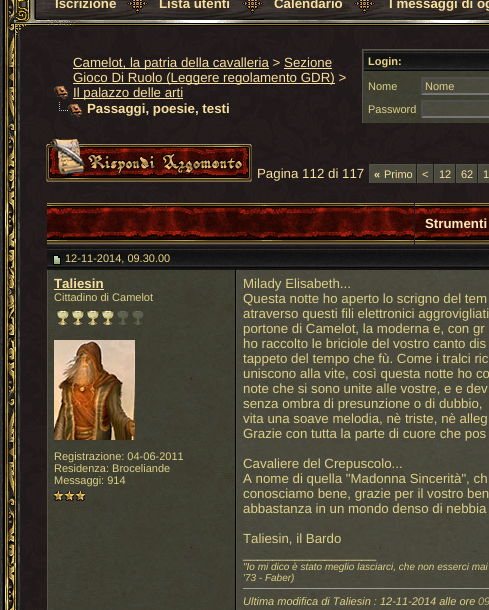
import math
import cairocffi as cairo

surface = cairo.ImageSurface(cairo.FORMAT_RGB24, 489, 610)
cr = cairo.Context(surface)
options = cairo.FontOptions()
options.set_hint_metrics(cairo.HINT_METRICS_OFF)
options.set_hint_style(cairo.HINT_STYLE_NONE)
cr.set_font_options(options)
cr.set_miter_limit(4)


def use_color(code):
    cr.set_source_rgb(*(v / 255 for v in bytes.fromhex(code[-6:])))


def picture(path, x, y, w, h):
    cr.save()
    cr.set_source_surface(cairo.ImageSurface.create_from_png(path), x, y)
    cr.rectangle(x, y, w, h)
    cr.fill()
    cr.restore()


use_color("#ffffff")
cr.paint()
picture("img1.png", 0, 0, 14, 610)
picture("img2.png", 14, 0, 475, 19)
picture("img3.png", 14, 19, 475, 4)
picture("img4.png", 16, 0, 20, 7)
picture("img5.png", 16, 7, 59, 16)
picture("img6.png", 16, 0, 18, 2)
cr.select_font_face("Liberation Sans", cairo.FONT_SLANT_NORMAL, cairo.FONT_WEIGHT_BOLD)
cr.set_font_size(13.3)
use_color("#f7df9e")
cr.move_to(55, 8)
cr.show_text("Iscrizione")
picture("img7.png", 127, 0, 21, 14)
cr.move_to(159, 8)
cr.show_text("Lista utenti")
picture("img8.png", 242, 0, 21, 14)
cr.move_to(274, 8)
cr.show_text("Calendario")
picture("img9.png", 354, 0, 21, 14)
cr.move_to(389, 8)
cr.show_text("I messaggi di og")
picture("img10.png", 21, 26, 468, 584)
picture("img11.png", 48, 23, 441, 3)
picture("img12.png", 14, 27, 7, 583)
picture("img13.png", 14, 23, 60, 15)
picture("img14.png", 54, 86, 14, 13)
cr.rectangle(73, 68, 196, 1)
cr.fill()
cr.select_font_face("Liberation Sans")
cr.move_to(73, 67)
cr.show_text("Camelot, la patria della cavalleria > Sezione")
cr.rectangle(73, 83, 262, 1)
cr.fill()
cr.move_to(73, 82)
cr.show_text("Gioco Di Ruolo (Leggere regolamento GDR) >")
cr.rectangle(284, 68, 48, 1)
cr.fill()
cr.rectangle(73, 98, 110, 1)
cr.fill()
cr.move_to(73, 97)
cr.show_text("Il palazzo delle arti")
picture("img15.png", 59, 102, 23, 15)
cr.select_font_face("Liberation Sans", cairo.FONT_SLANT_NORMAL, cairo.FONT_WEIGHT_BOLD)
cr.move_to(87, 113)
cr.show_text("Passaggi, poesie, testi")
picture("img16.png", 363, 50, 126, 73)
use_color("#535446")
cr.rectangle(362, 49, 127, 1)
cr.fill()
cr.rectangle(362, 49, 1, 74)
cr.fill()
picture("img17.png", 364, 51, 125, 20)
cr.set_font_size(11)
use_color("#ead482")
cr.move_to(368, 65)
cr.show_text("Login:")
cr.select_font_face("Liberation Sans")
use_color("#dccf87")
cr.move_to(368, 90)
cr.show_text("Nome")
picture("img18.png", 421, 77, 68, 18)
use_color("#4f4f4f")
cr.new_path()
cr.move_to(421, 77)
cr.line_to(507, 77)
cr.line_to(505, 79)
cr.line_to(423, 79)
cr.close_path()
cr.fill()
use_color("#767676")
cr.new_path()
cr.move_to(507, 95)
cr.line_to(421, 95)
cr.line_to(423, 93)
cr.line_to(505, 93)
cr.close_path()
cr.fill()
use_color("#4f4f4f")
cr.new_path()
cr.move_to(421, 95)
cr.line_to(421, 77)
cr.line_to(423, 79)
cr.line_to(423, 93)
cr.close_path()
cr.fill()
use_color("#dccf87")
cr.move_to(425, 90)
cr.show_text("Nome")
cr.move_to(368, 113)
cr.show_text("Password")
picture("img18.png", 421, 100, 68, 18)
use_color("#4f4f4f")
cr.new_path()
cr.move_to(421, 100)
cr.line_to(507, 100)
cr.line_to(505, 102)
cr.line_to(423, 102)
cr.close_path()
cr.fill()
use_color("#767676")
cr.new_path()
cr.move_to(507, 118)
cr.line_to(421, 118)
cr.line_to(423, 116)
cr.line_to(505, 116)
cr.close_path()
cr.fill()
use_color("#4f4f4f")
cr.new_path()
cr.move_to(421, 118)
cr.line_to(421, 100)
cr.line_to(423, 102)
cr.line_to(423, 116)
cr.close_path()
cr.fill()
picture("img19.png", 46, 139, 206, 43)
cr.set_font_size(13.3)
use_color("#f7df9e")
cr.move_to(257, 178)
cr.show_text("Pagina 112 di 117")
picture("img20.png", 370, 165, 46, 18)
use_color("#535446")
cr.rectangle(369, 164, 47, 1)
cr.fill()
cr.rectangle(369, 164, 1, 19)
cr.fill()
cr.select_font_face("Liberation Sans", cairo.FONT_SLANT_NORMAL, cairo.FONT_WEIGHT_BOLD)
cr.set_font_size(11)
use_color("#f7df9e")
cr.move_to(374, 178)
cr.show_text("«")
cr.select_font_face("Liberation Sans")
cr.move_to(384, 178)
cr.show_text("Primo")
picture("img21.png", 418, 165, 15, 18)
use_color("#535446")
cr.rectangle(417, 164, 16, 1)
cr.fill()
cr.rectangle(417, 164, 1, 19)
cr.fill()
use_color("#f7df9e")
cr.move_to(422, 178)
cr.show_text("<")
picture("img22.png", 435, 165, 20, 18)
use_color("#535446")
cr.rectangle(434, 164, 21, 1)
cr.fill()
cr.rectangle(434, 164, 1, 19)
cr.fill()
use_color("#f7df9e")
cr.move_to(439, 178)
cr.show_text("12")
picture("img22.png", 457, 165, 20, 18)
use_color("#535446")
cr.rectangle(456, 164, 21, 1)
cr.fill()
cr.rectangle(456, 164, 1, 19)
cr.fill()
use_color("#f7df9e")
cr.move_to(461, 178)
cr.show_text("62")
picture("img23.png", 479, 165, 10, 18)
use_color("#535446")
cr.rectangle(478, 164, 11, 1)
cr.fill()
cr.rectangle(478, 164, 1, 19)
cr.fill()
use_color("#f7df9e")
cr.move_to(483, 178)
cr.show_text("1")
use_color("#333333")
cr.rectangle(47, 244, 367, 1)
cr.fill()
picture("img24.png", 47, 203, 367, 41)
cr.rectangle(415, 244, 74, 1)
cr.fill()
picture("img25.png", 415, 203, 74, 41)
cr.select_font_face("Liberation Sans", cairo.FONT_SLANT_NORMAL, cairo.FONT_WEIGHT_BOLD)
cr.set_font_size(13.3)
use_color("#ffe9b9")
cr.move_to(425, 228)
cr.show_text("Strumenti")
picture("img26.png", 47, 247, 189, 23)
picture("img27.png", 53, 255, 8, 10)
cr.select_font_face("Liberation Sans")
cr.set_font_size(11)
use_color("#ead482")
cr.move_to(65, 262)
cr.show_text("12-11-2014, 09.30.00")
picture("img28.png", 236, 247, 253, 23)
picture("img29.png", 48, 270, 187, 340)
use_color("#000000")
cr.rectangle(235, 270, 1, 340)
cr.fill()
use_color("#535446")
cr.rectangle(47, 270, 1, 340)
cr.fill()
cr.select_font_face("Liberation Sans", cairo.FONT_SLANT_NORMAL, cairo.FONT_WEIGHT_BOLD)
cr.set_font_size(13.3)
use_color("#f7df9e")
cr.move_to(54, 288)
cr.show_text("Taliesin")
cr.rectangle(54, 289, 50, 1)
cr.fill()
cr.select_font_face("Liberation Sans")
cr.set_font_size(11)
use_color("#dccf87")
cr.move_to(54, 301)
cr.show_text("Cittadino di Camelot")
picture("img30.png", 56, 310, 89, 16)
picture("img31.png", 54, 340, 81, 100)
cr.move_to(54, 460)
cr.show_text("Registrazione: 04-06-2011")
cr.move_to(54, 472)
cr.show_text("Residenza: Broceliande")
cr.move_to(54, 484)
cr.show_text("Messaggi: 914")
picture("img32.png", 54, 491, 9, 10)
picture("img33.png", 65, 491, 9, 10)
picture("img34.png", 76, 491, 9, 10)
picture("img35.png", 237, 270, 252, 340)
use_color("#535446")
cr.rectangle(236, 270, 1, 340)
cr.fill()
cr.set_font_size(13.3)
use_color("#dccf87")
cr.move_to(243, 288)
cr.show_text("Milady Elisabeth...")
cr.move_to(243, 303)
cr.show_text("Questa notte ho aperto lo scrigno del tem")
cr.move_to(243, 318)
cr.show_text("atraverso questi fili elettronici aggrovigliati")
cr.move_to(243, 333)
cr.show_text("portone di Camelot, la moderna e, con gr")
cr.move_to(243, 348)
cr.show_text("ho raccolto le briciole del vostro canto dis")
cr.move_to(243, 363)
cr.show_text("tappeto del tempo che fù. Come i tralci ric")
cr.move_to(243, 378)
cr.show_text("uniscono alla vite, così questa notte ho co")
cr.move_to(243, 393)
cr.show_text("note che si sono unite alle vostre, e e dev")
cr.move_to(243, 408)
cr.show_text("senza ombra di presunzione o di dubbio,")
cr.move_to(243, 423)
cr.show_text("vita una soave melodia, nè triste, nè alleg")
cr.move_to(243, 438)
cr.show_text("Grazie con tutta la parte di cuore che pos")
cr.move_to(243, 468)
cr.show_text("Cavaliere del Crepuscolo...")
cr.move_to(243, 483)
cr.show_text("A nome di quella \"Madonna Sincerità\", ch")
cr.move_to(243, 498)
cr.show_text("conosciamo bene, grazie per il vostro ben")
cr.move_to(243, 513)
cr.show_text("abbastanza in un mondo denso di nebbia")
cr.move_to(243, 543)
cr.show_text("Taliesin, il Bardo")
cr.move_to(243, 558)
cr.show_text("__________________")
cr.select_font_face("Liberation Sans", cairo.FONT_SLANT_ITALIC)
cr.set_font_size(10)
cr.move_to(243, 570)
cr.show_text("\"Io mi dico è stato meglio lasciarci, che non esserci mai")
cr.move_to(243, 581)
cr.show_text("'73 - Faber)")
use_color("#9f9f9f")
cr.rectangle(243, 588, 246, 1)
cr.fill()
cr.set_font_size(11)
use_color("#dccf87")
cr.move_to(243, 605)
cr.show_text("Ultima modifica di Taliesin : 12-11-2014 alle ore")
use_color("#b6b67a")
cr.move_to(478, 605)
cr.show_text("09")
surface.write_to_png("result.png")
